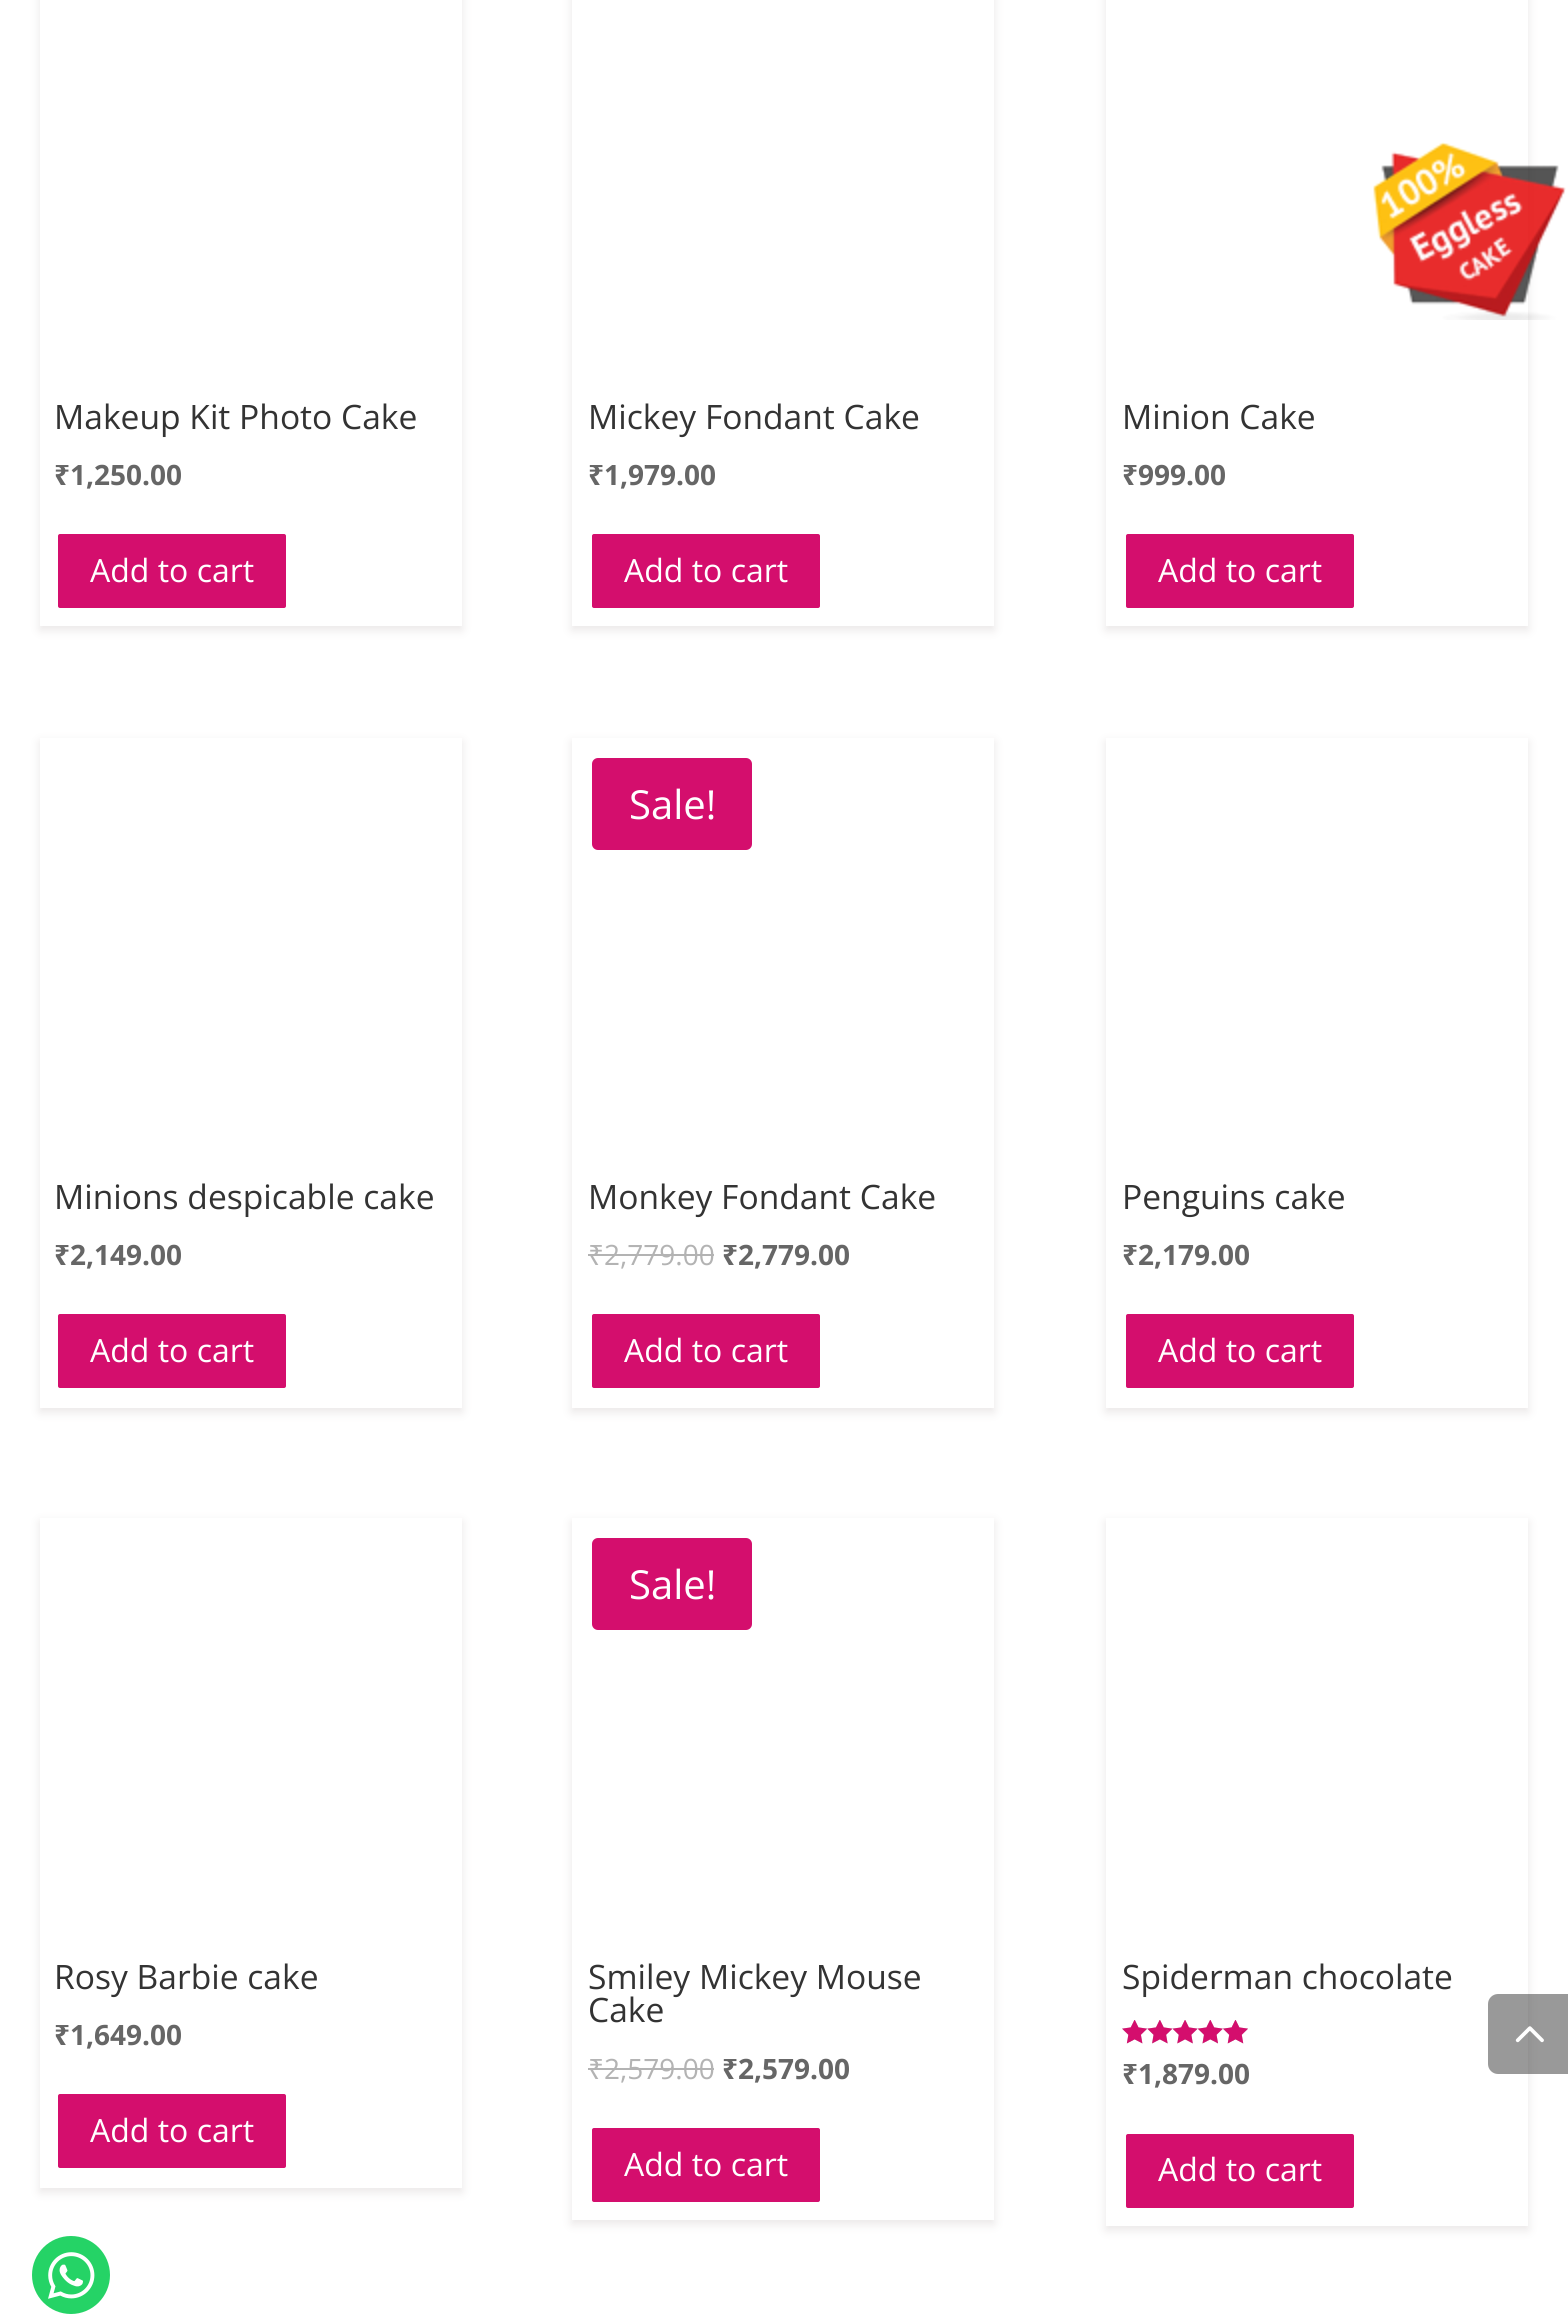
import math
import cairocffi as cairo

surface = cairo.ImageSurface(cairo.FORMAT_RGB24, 1568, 2323)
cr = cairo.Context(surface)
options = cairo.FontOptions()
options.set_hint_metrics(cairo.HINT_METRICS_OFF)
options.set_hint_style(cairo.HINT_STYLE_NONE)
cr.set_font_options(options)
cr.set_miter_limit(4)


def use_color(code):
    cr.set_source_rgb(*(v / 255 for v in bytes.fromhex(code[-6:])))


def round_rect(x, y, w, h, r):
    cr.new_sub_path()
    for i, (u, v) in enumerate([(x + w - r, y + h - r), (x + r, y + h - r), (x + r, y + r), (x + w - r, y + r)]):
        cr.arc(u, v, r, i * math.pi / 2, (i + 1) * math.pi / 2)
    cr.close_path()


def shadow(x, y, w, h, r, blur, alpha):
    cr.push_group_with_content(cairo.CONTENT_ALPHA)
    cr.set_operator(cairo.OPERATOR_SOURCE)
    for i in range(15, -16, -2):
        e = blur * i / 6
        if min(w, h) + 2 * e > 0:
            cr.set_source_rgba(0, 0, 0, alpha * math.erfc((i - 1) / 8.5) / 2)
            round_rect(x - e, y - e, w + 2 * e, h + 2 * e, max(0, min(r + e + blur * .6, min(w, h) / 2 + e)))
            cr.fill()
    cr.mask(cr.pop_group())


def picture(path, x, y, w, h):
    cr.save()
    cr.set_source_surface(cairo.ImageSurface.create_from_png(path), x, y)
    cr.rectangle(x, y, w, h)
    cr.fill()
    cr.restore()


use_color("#ffffff")
cr.paint()
cr.save()
cr.set_fill_rule(cairo.FILL_RULE_EVEN_ODD)
cr.new_path()
cr.move_to(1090, 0)
cr.line_to(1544, 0)
cr.line_to(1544, 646)
cr.line_to(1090, 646)
cr.close_path()
cr.move_to(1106, -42)
cr.line_to(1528, -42)
cr.line_to(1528, 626)
cr.line_to(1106, 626)
cr.close_path()
cr.clip()
use_color("#eae7e7")
shadow(1106, -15, 422, 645, 0, 5, 1)
cr.restore()
picture("img1.png", 1373, 142, 193, 178)
cr.save()
cr.set_fill_rule(cairo.FILL_RULE_EVEN_ODD)
cr.new_path()
cr.move_to(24, 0)
cr.line_to(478, 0)
cr.line_to(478, 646)
cr.line_to(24, 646)
cr.close_path()
cr.move_to(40, -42)
cr.line_to(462, -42)
cr.line_to(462, 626)
cr.line_to(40, 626)
cr.close_path()
cr.clip()
use_color("#eae7e7")
shadow(40, -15, 422, 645, 0, 5, 1)
cr.restore()
cr.select_font_face("Open Sans")
cr.set_font_size(33.6)
use_color("#333333")
cr.move_to(54, 429)
cr.show_text("Makeup Kit Photo Cake")
cr.select_font_face("Noto Sans", cairo.FONT_SLANT_NORMAL, cairo.FONT_WEIGHT_BOLD)
cr.set_font_size(28)
use_color("#666666")
cr.move_to(54, 485)
cr.show_text("₹")
cr.select_font_face("Open Sans", cairo.FONT_SLANT_NORMAL, cairo.FONT_WEIGHT_BOLD)
cr.move_to(70, 485)
cr.show_text("1,250.00")
use_color("#d40e6d")
round_rect(56, 532, 232, 78, 4)
cr.fill_preserve()
use_color("#ffffff")
cr.set_line_width(4)
cr.stroke()
cr.select_font_face("Open Sans")
cr.set_font_size(32)
cr.move_to(90, 582)
cr.show_text("Add to cart")
cr.save()
cr.set_fill_rule(cairo.FILL_RULE_EVEN_ODD)
cr.new_path()
cr.move_to(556, 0)
cr.line_to(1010, 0)
cr.line_to(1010, 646)
cr.line_to(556, 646)
cr.close_path()
cr.move_to(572, -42)
cr.line_to(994, -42)
cr.line_to(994, 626)
cr.line_to(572, 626)
cr.close_path()
cr.clip()
use_color("#eae7e7")
shadow(572, -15, 422, 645, 0, 5, 1)
cr.restore()
cr.set_font_size(33.6)
use_color("#333333")
cr.move_to(588, 429)
cr.show_text("Mickey Fondant Cake")
cr.select_font_face("Noto Sans", cairo.FONT_SLANT_NORMAL, cairo.FONT_WEIGHT_BOLD)
cr.set_font_size(28)
use_color("#666666")
cr.move_to(588, 485)
cr.show_text("₹")
cr.select_font_face("Open Sans", cairo.FONT_SLANT_NORMAL, cairo.FONT_WEIGHT_BOLD)
cr.move_to(604, 485)
cr.show_text("1,979.00")
use_color("#d40e6d")
round_rect(590, 532, 232, 78, 4)
cr.fill_preserve()
use_color("#ffffff")
cr.stroke()
cr.select_font_face("Open Sans")
cr.set_font_size(32)
cr.move_to(624, 582)
cr.show_text("Add to cart")
cr.set_font_size(33.6)
use_color("#333333")
cr.move_to(1122, 429)
cr.show_text("Minion Cake")
cr.select_font_face("Noto Sans", cairo.FONT_SLANT_NORMAL, cairo.FONT_WEIGHT_BOLD)
cr.set_font_size(28)
use_color("#666666")
cr.move_to(1122, 485)
cr.show_text("₹")
cr.select_font_face("Open Sans", cairo.FONT_SLANT_NORMAL, cairo.FONT_WEIGHT_BOLD)
cr.move_to(1138, 485)
cr.show_text("999.00")
use_color("#d40e6d")
round_rect(1124, 532, 232, 78, 4)
cr.fill_preserve()
use_color("#ffffff")
cr.stroke()
cr.select_font_face("Open Sans")
cr.set_font_size(32)
cr.move_to(1158, 582)
cr.show_text("Add to cart")
cr.save()
cr.set_fill_rule(cairo.FILL_RULE_EVEN_ODD)
cr.new_path()
cr.move_to(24, 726)
cr.line_to(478, 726)
cr.line_to(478, 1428)
cr.line_to(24, 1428)
cr.close_path()
cr.move_to(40, 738)
cr.line_to(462, 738)
cr.line_to(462, 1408)
cr.line_to(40, 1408)
cr.close_path()
cr.clip()
use_color("#eae7e7")
shadow(40, 742, 422, 670, 0, 5, 1)
cr.restore()
cr.set_font_size(33.6)
use_color("#333333")
cr.move_to(54, 1209)
cr.show_text("Minions despicable cake")
cr.select_font_face("Noto Sans", cairo.FONT_SLANT_NORMAL, cairo.FONT_WEIGHT_BOLD)
cr.set_font_size(28)
use_color("#666666")
cr.move_to(54, 1265)
cr.show_text("₹")
cr.select_font_face("Open Sans", cairo.FONT_SLANT_NORMAL, cairo.FONT_WEIGHT_BOLD)
cr.move_to(70, 1265)
cr.show_text("2,149.00")
use_color("#d40e6d")
round_rect(56, 1312, 232, 78, 4)
cr.fill_preserve()
use_color("#ffffff")
cr.stroke()
cr.select_font_face("Open Sans")
cr.set_font_size(32)
cr.move_to(90, 1362)
cr.show_text("Add to cart")
cr.save()
cr.set_fill_rule(cairo.FILL_RULE_EVEN_ODD)
cr.new_path()
cr.move_to(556, 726)
cr.line_to(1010, 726)
cr.line_to(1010, 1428)
cr.line_to(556, 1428)
cr.close_path()
cr.move_to(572, 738)
cr.line_to(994, 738)
cr.line_to(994, 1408)
cr.line_to(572, 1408)
cr.close_path()
cr.clip()
use_color("#eae7e7")
shadow(572, 742, 422, 670, 0, 5, 1)
cr.restore()
use_color("#d40e6d")
round_rect(592, 758, 160, 92, 6)
cr.fill()
cr.set_font_size(40)
use_color("#ffffff")
cr.move_to(629, 819)
cr.show_text("Sale!")
cr.set_font_size(33.6)
use_color("#333333")
cr.move_to(588, 1209)
cr.show_text("Monkey Fondant Cake")
cr.select_font_face("Noto Sans")
cr.set_font_size(28)
use_color("#b3b3b3")
cr.move_to(588, 1265)
cr.show_text("₹")
cr.rectangle(588, 1254, 16, 2)
cr.fill()
cr.rectangle(604, 1254, 110, 2)
cr.fill()
cr.select_font_face("Open Sans")
cr.move_to(604, 1265)
cr.show_text("2,779.00")
cr.select_font_face("Noto Sans", cairo.FONT_SLANT_NORMAL, cairo.FONT_WEIGHT_BOLD)
use_color("#666666")
cr.move_to(722, 1265)
cr.show_text("₹")
cr.select_font_face("Open Sans", cairo.FONT_SLANT_NORMAL, cairo.FONT_WEIGHT_BOLD)
cr.move_to(738, 1265)
cr.show_text("2,779.00")
use_color("#d40e6d")
round_rect(590, 1312, 232, 78, 4)
cr.fill_preserve()
use_color("#ffffff")
cr.stroke()
cr.select_font_face("Open Sans")
cr.set_font_size(32)
cr.move_to(624, 1362)
cr.show_text("Add to cart")
cr.save()
cr.set_fill_rule(cairo.FILL_RULE_EVEN_ODD)
cr.new_path()
cr.move_to(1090, 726)
cr.line_to(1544, 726)
cr.line_to(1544, 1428)
cr.line_to(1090, 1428)
cr.close_path()
cr.move_to(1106, 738)
cr.line_to(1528, 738)
cr.line_to(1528, 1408)
cr.line_to(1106, 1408)
cr.close_path()
cr.clip()
use_color("#eae7e7")
shadow(1106, 742, 422, 670, 0, 5, 1)
cr.restore()
cr.set_font_size(33.6)
use_color("#333333")
cr.move_to(1122, 1209)
cr.show_text("Penguins cake")
cr.select_font_face("Noto Sans", cairo.FONT_SLANT_NORMAL, cairo.FONT_WEIGHT_BOLD)
cr.set_font_size(28)
use_color("#666666")
cr.move_to(1122, 1265)
cr.show_text("₹")
cr.select_font_face("Open Sans", cairo.FONT_SLANT_NORMAL, cairo.FONT_WEIGHT_BOLD)
cr.move_to(1138, 1265)
cr.show_text("2,179.00")
use_color("#d40e6d")
round_rect(1124, 1312, 232, 78, 4)
cr.fill_preserve()
use_color("#ffffff")
cr.stroke()
cr.select_font_face("Open Sans")
cr.set_font_size(32)
cr.move_to(1158, 1362)
cr.show_text("Add to cart")
cr.save()
cr.set_fill_rule(cairo.FILL_RULE_EVEN_ODD)
cr.new_path()
cr.move_to(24, 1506)
cr.line_to(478, 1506)
cr.line_to(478, 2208)
cr.line_to(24, 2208)
cr.close_path()
cr.move_to(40, 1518)
cr.line_to(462, 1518)
cr.line_to(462, 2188)
cr.line_to(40, 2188)
cr.close_path()
cr.clip()
use_color("#eae7e7")
shadow(40, 1522, 422, 670, 0, 5, 1)
cr.restore()
cr.set_font_size(33.6)
use_color("#333333")
cr.move_to(54, 1989)
cr.show_text("Rosy Barbie cake")
cr.select_font_face("Noto Sans", cairo.FONT_SLANT_NORMAL, cairo.FONT_WEIGHT_BOLD)
cr.set_font_size(28)
use_color("#666666")
cr.move_to(54, 2045)
cr.show_text("₹")
cr.select_font_face("Open Sans", cairo.FONT_SLANT_NORMAL, cairo.FONT_WEIGHT_BOLD)
cr.move_to(70, 2045)
cr.show_text("1,649.00")
use_color("#d40e6d")
round_rect(56, 2092, 232, 78, 4)
cr.fill_preserve()
use_color("#ffffff")
cr.stroke()
cr.select_font_face("Open Sans")
cr.set_font_size(32)
cr.move_to(90, 2142)
cr.show_text("Add to cart")
cr.save()
cr.set_fill_rule(cairo.FILL_RULE_EVEN_ODD)
cr.new_path()
cr.move_to(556, 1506)
cr.line_to(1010, 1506)
cr.line_to(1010, 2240)
cr.line_to(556, 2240)
cr.close_path()
cr.move_to(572, 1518)
cr.line_to(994, 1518)
cr.line_to(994, 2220)
cr.line_to(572, 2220)
cr.close_path()
cr.clip()
use_color("#eae7e7")
shadow(572, 1522, 422, 702, 0, 5, 1)
cr.restore()
use_color("#d40e6d")
round_rect(592, 1538, 160, 92, 6)
cr.fill()
cr.set_font_size(40)
use_color("#ffffff")
cr.move_to(629, 1599)
cr.show_text("Sale!")
cr.set_font_size(33.6)
use_color("#333333")
cr.move_to(588, 1989)
cr.show_text("Smiley Mickey Mouse")
cr.move_to(588, 2022)
cr.show_text("Cake")
cr.select_font_face("Noto Sans")
cr.set_font_size(28)
use_color("#b3b3b3")
cr.move_to(588, 2079)
cr.show_text("₹")
cr.rectangle(588, 2068, 16, 2)
cr.fill()
cr.rectangle(604, 2068, 110, 2)
cr.fill()
cr.select_font_face("Open Sans")
cr.move_to(604, 2079)
cr.show_text("2,579.00")
cr.select_font_face("Noto Sans", cairo.FONT_SLANT_NORMAL, cairo.FONT_WEIGHT_BOLD)
use_color("#666666")
cr.move_to(722, 2079)
cr.show_text("₹")
cr.select_font_face("Open Sans", cairo.FONT_SLANT_NORMAL, cairo.FONT_WEIGHT_BOLD)
cr.move_to(738, 2079)
cr.show_text("2,579.00")
use_color("#d40e6d")
round_rect(590, 2126, 232, 78, 4)
cr.fill_preserve()
use_color("#ffffff")
cr.stroke()
cr.select_font_face("Open Sans")
cr.set_font_size(32)
cr.move_to(624, 2176)
cr.show_text("Add to cart")
cr.save()
cr.set_fill_rule(cairo.FILL_RULE_EVEN_ODD)
cr.new_path()
cr.move_to(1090, 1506)
cr.line_to(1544, 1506)
cr.line_to(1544, 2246)
cr.line_to(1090, 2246)
cr.close_path()
cr.move_to(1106, 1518)
cr.line_to(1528, 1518)
cr.line_to(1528, 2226)
cr.line_to(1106, 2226)
cr.close_path()
cr.clip()
use_color("#eae7e7")
shadow(1106, 1522, 422, 708, 0, 5, 1)
cr.restore()
cr.set_font_size(33.6)
use_color("#333333")
cr.move_to(1122, 1989)
cr.show_text("Spiderman chocolate")
picture("img2.png", 1122, 2020, 126, 24)
picture("img3.png", 1122, 2020, 126, 24)
cr.select_font_face("Noto Sans", cairo.FONT_SLANT_NORMAL, cairo.FONT_WEIGHT_BOLD)
cr.set_font_size(28)
use_color("#666666")
cr.move_to(1122, 2084)
cr.show_text("₹")
cr.select_font_face("Open Sans", cairo.FONT_SLANT_NORMAL, cairo.FONT_WEIGHT_BOLD)
cr.move_to(1138, 2084)
cr.show_text("1,879.00")
use_color("#d40e6d")
round_rect(1124, 2132, 232, 78, 4)
cr.fill_preserve()
use_color("#ffffff")
cr.stroke()
cr.select_font_face("Open Sans")
cr.set_font_size(32)
cr.move_to(1158, 2181)
cr.show_text("Add to cart")
cr.set_source_rgba(0, 0, 0, 0.4)
cr.new_path()
cr.move_to(1498, 1994)
cr.line_to(1568, 1994)
cr.line_to(1568, 2074)
cr.line_to(1498, 2074)
cr.curve_to(1492.5, 2074, 1488, 2069.5, 1488, 2064)
cr.line_to(1488, 2004)
cr.curve_to(1488, 1998.5, 1492.5, 1994, 1498, 1994)
cr.close_path()
cr.fill()
picture("img4.png", 1515, 2026, 29, 17)
picture("img5.png", 32, 2236, 78, 78)
surface.write_to_png("result.png")
